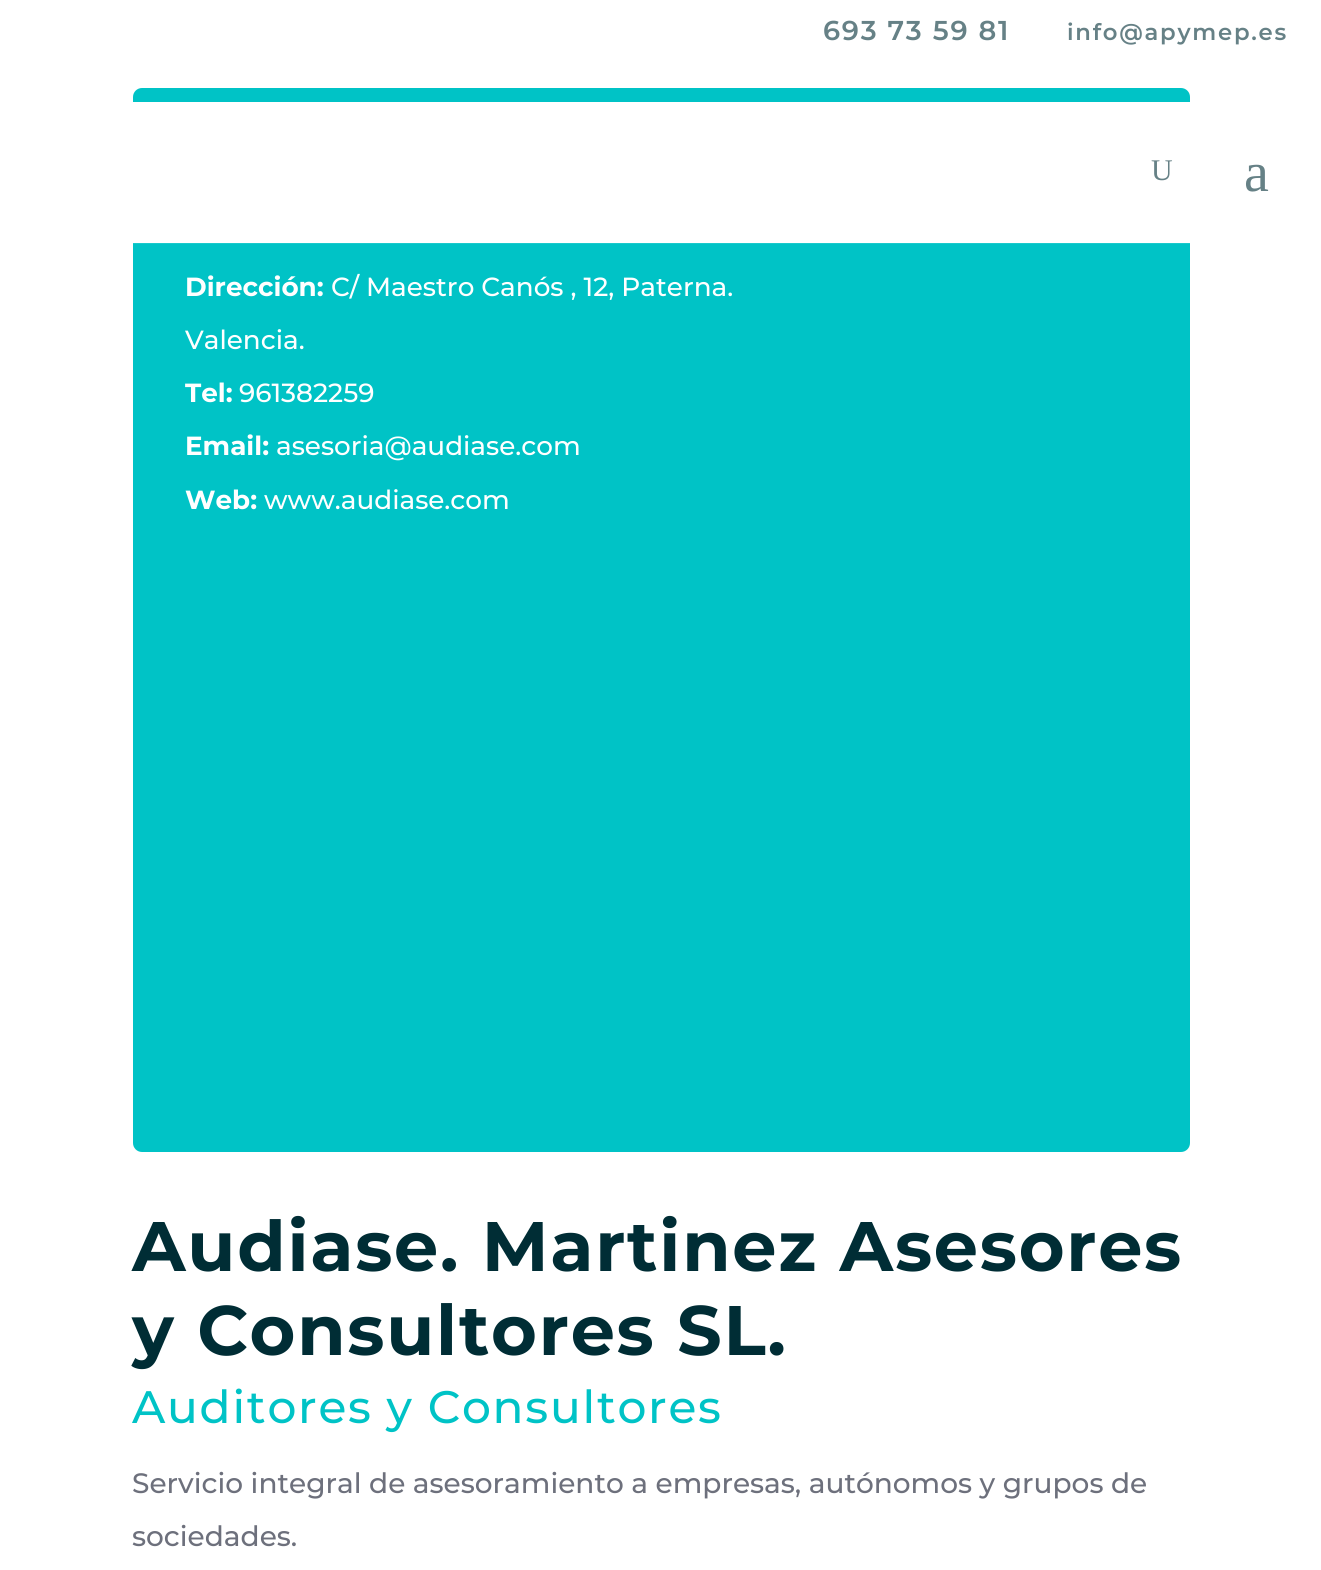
import math
import cairocffi as cairo

surface = cairo.ImageSurface(cairo.FORMAT_RGB24, 1321, 1570)
cr = cairo.Context(surface)
options = cairo.FontOptions()
options.set_hint_metrics(cairo.HINT_METRICS_OFF)
options.set_hint_style(cairo.HINT_STYLE_NONE)
cr.set_font_options(options)
cr.set_miter_limit(4)


def use_color(code):
    cr.set_source_rgb(*(v / 255 for v in bytes.fromhex(code[-6:])))


def spaced_text(x, y, s, letter, word):
    cr.move_to(x, y)
    for ch in s:
        cr.show_text(ch)
        cr.rel_move_to(letter + word * (ch == ' '), 0)


def round_rect(x, y, w, h, r):
    cr.new_sub_path()
    for i, (u, v) in enumerate([(x + w - r, y + h - r), (x + r, y + h - r), (x + r, y + r), (x + w - r, y + r)]):
        cr.arc(u, v, r, i * math.pi / 2, (i + 1) * math.pi / 2)
    cr.close_path()


use_color("#ffffff")
cr.paint()
cr.select_font_face("Montserrat SemiBold")
cr.set_font_size(27.25)
use_color("#668186")
spaced_text(823, 40, "693 73 59 81", 1.75, 0)
cr.set_font_size(22.75)
spaced_text(1067, 40, "info@apymep.es", 1.75, 0)
use_color("#00c3c6")
round_rect(133, 88, 1057, 1064, 9)
cr.fill()
use_color("#ffffff")
cr.rectangle(133, 102, 1057, 141)
cr.fill()
cr.select_font_face("Liberation Serif")
cr.set_font_size(30)
use_color("#668186")
cr.move_to(1151, 180)
cr.show_text("U")
cr.set_font_size(56)
cr.move_to(1244, 191)
cr.show_text("a")
use_color("#1ac9cc")
cr.rectangle(133, 243, 1057, 1)
cr.fill()
cr.select_font_face("Montserrat", cairo.FONT_SLANT_NORMAL, cairo.FONT_WEIGHT_BOLD)
cr.set_font_size(26.25)
use_color("#ffffff")
cr.move_to(185, 296)
cr.show_text("Dirección:")
cr.select_font_face("Montserrat Medium")
cr.move_to(331, 296)
cr.show_text("C/ Maestro Canós , 12, Paterna.")
cr.move_to(185, 349)
cr.show_text("Valencia.")
cr.select_font_face("Montserrat", cairo.FONT_SLANT_NORMAL, cairo.FONT_WEIGHT_BOLD)
cr.move_to(185, 402)
cr.show_text("Tel:")
cr.select_font_face("Montserrat Medium")
cr.move_to(239, 402)
cr.show_text("961382259")
cr.select_font_face("Montserrat", cairo.FONT_SLANT_NORMAL, cairo.FONT_WEIGHT_BOLD)
cr.move_to(185, 455)
cr.show_text("Email:")
cr.select_font_face("Montserrat Medium")
cr.move_to(276, 455)
cr.show_text("asesoria@audiase.com")
cr.select_font_face("Montserrat", cairo.FONT_SLANT_NORMAL, cairo.FONT_WEIGHT_BOLD)
cr.move_to(185, 509)
cr.show_text("Web:")
cr.select_font_face("Montserrat Medium")
cr.move_to(264, 509)
cr.show_text("www.audiase.com")
cr.select_font_face("Montserrat", cairo.FONT_SLANT_NORMAL, cairo.FONT_WEIGHT_BOLD)
cr.set_font_size(70)
use_color("#002d35")
spaced_text(132, 1271, "Audiase. Martinez Asesores", 1.75, 0)
spaced_text(132, 1355, "y Consultores SL.", 1.75, 0)
cr.select_font_face("Montserrat Medium")
cr.set_font_size(45.5)
use_color("#00c3c6")
spaced_text(132, 1423, "Auditores y Consultores", 1.75, 0)
cr.set_font_size(28)
use_color("#6d707c")
cr.move_to(132, 1493)
cr.show_text("Servicio integral de asesoramiento a empresas, autónomos y grupos de")
cr.move_to(132, 1546)
cr.show_text("sociedades.")
surface.write_to_png("result.png")
